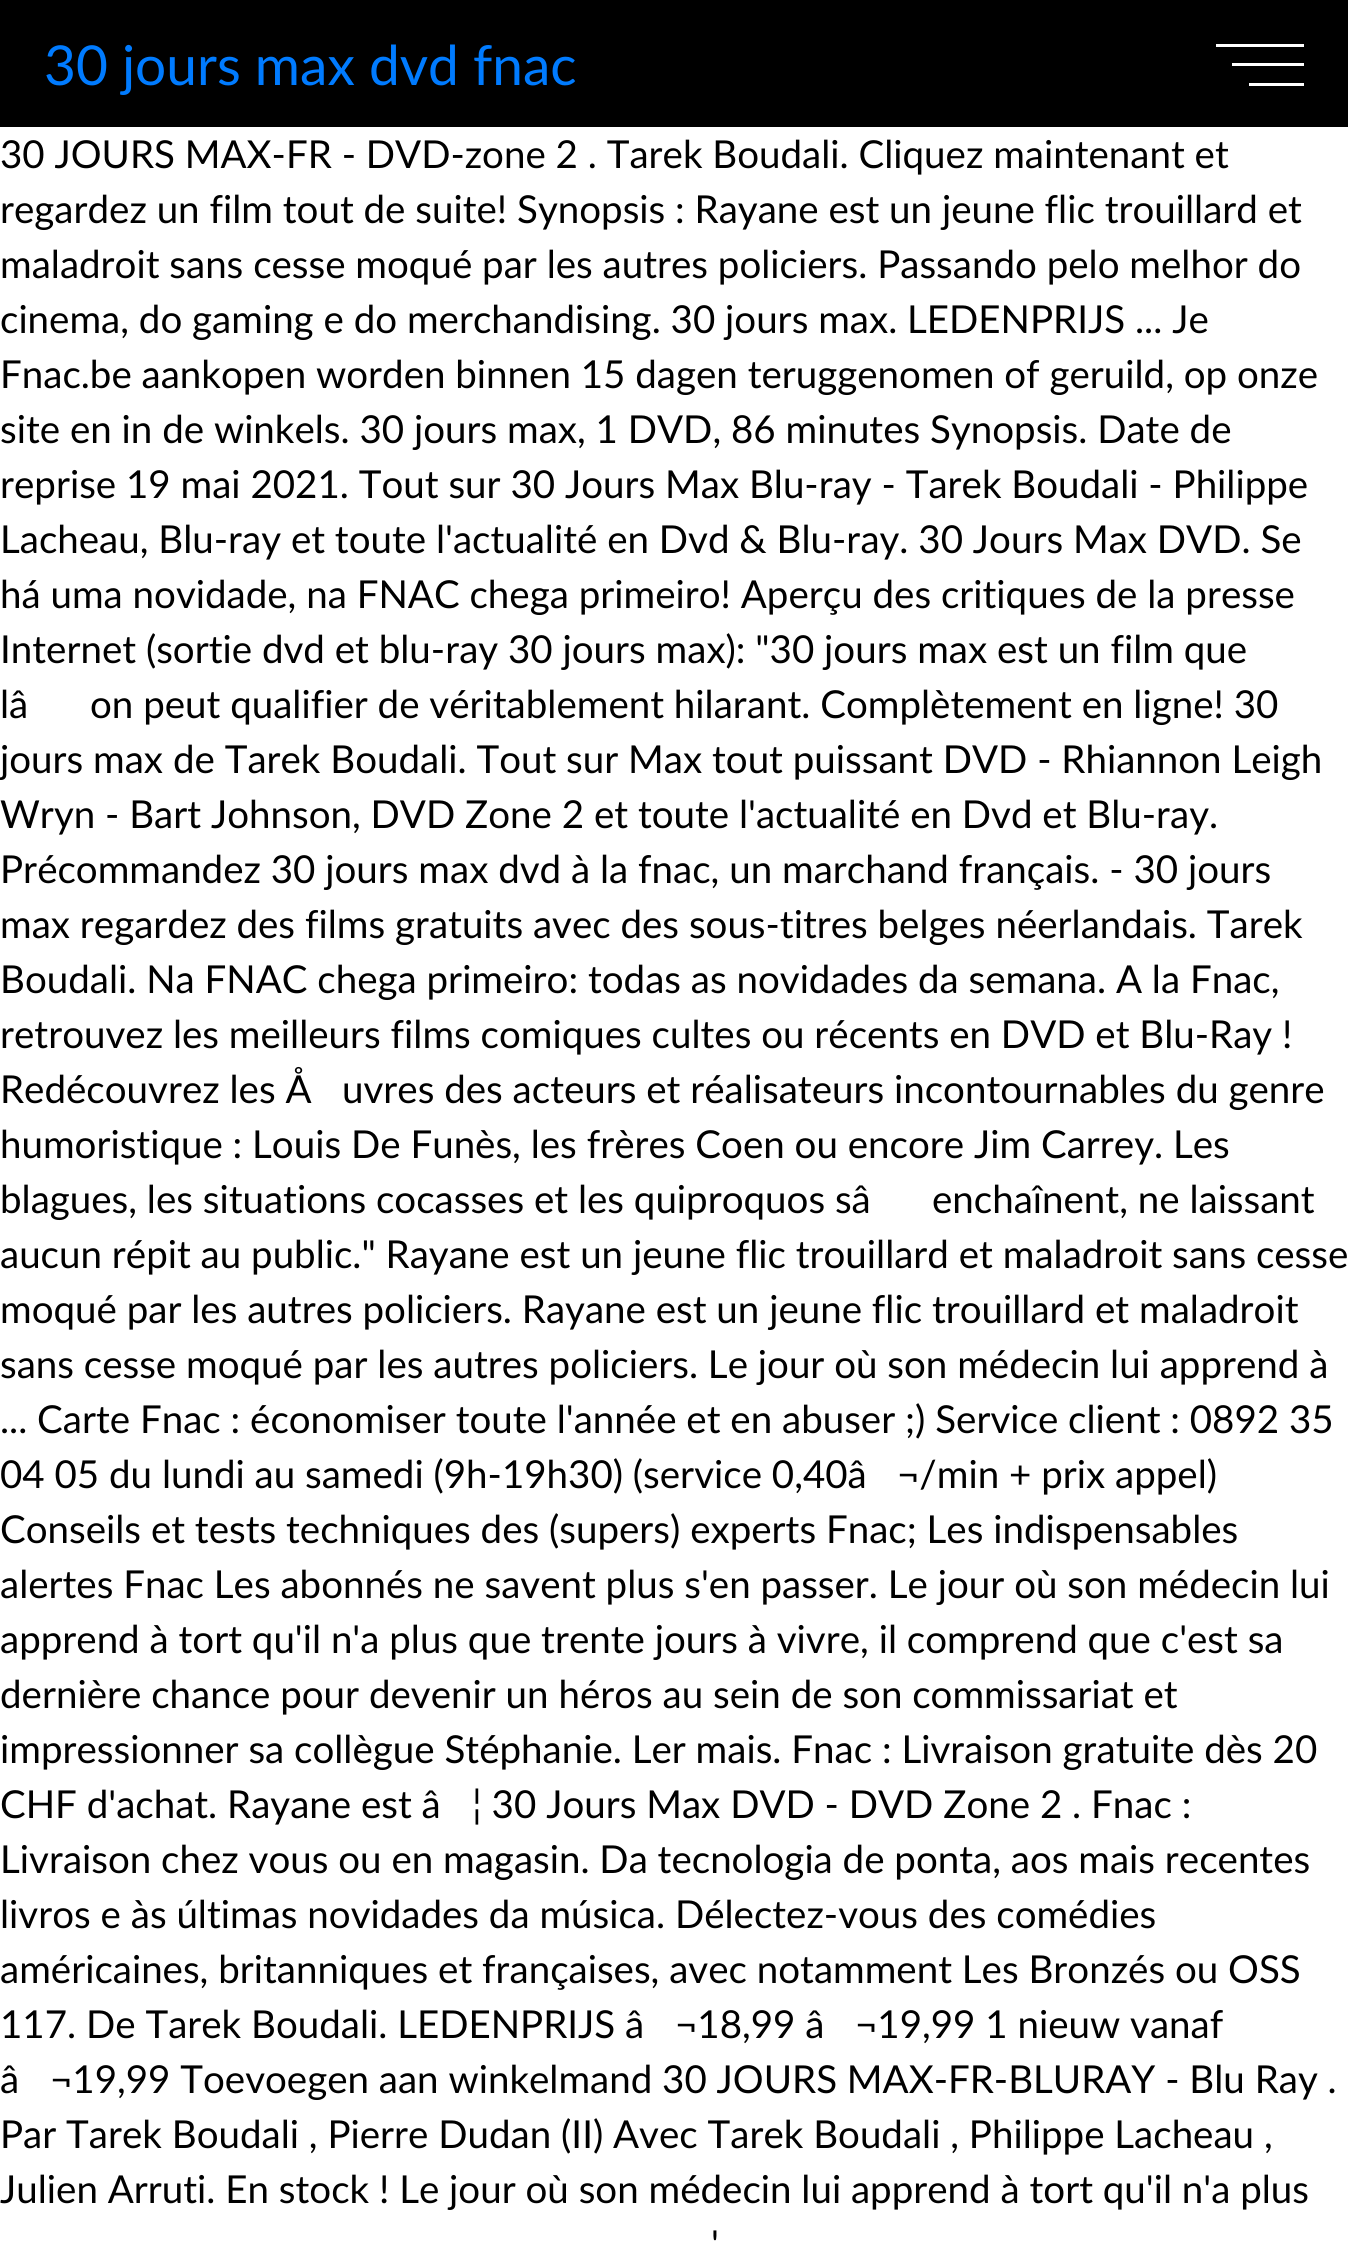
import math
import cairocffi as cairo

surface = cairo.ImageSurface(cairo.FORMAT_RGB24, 1348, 2243)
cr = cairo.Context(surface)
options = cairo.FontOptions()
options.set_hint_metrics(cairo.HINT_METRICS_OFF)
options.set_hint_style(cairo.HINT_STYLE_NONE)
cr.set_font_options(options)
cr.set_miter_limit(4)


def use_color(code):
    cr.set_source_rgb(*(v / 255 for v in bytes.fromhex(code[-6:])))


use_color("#ffffff")
cr.paint()
use_color("#000000")
cr.rectangle(0, 0, 1348, 127)
cr.fill()
cr.select_font_face("Lato")
cr.set_font_size(55)
use_color("#007bff")
cr.move_to(44, 85)
cr.show_text("30 jours max dvd fnac")
use_color("#ffffff")
cr.rectangle(1232, 63, 72, 3)
cr.fill()
cr.rectangle(1216, 44, 88, 3)
cr.fill()
cr.rectangle(1249, 83, 55, 3)
cr.fill()
cr.set_font_size(38.5)
use_color("#000000")
cr.move_to(0, 168)
cr.show_text("30 JOURS MAX-FR - DVD-zone 2 . Tarek Boudali. Cliquez maintenant et")
cr.move_to(0, 223)
cr.show_text("regardez un film tout de suite! Synopsis : Rayane est un jeune flic trouillard et")
cr.move_to(0, 278)
cr.show_text("maladroit sans cesse moqué par les autres policiers. Passando pelo melhor do")
cr.move_to(0, 333)
cr.show_text("cinema, do gaming e do merchandising. 30 jours max. LEDENPRIJS ... Je")
cr.move_to(0, 388)
cr.show_text("Fnac.be aankopen worden binnen 15 dagen teruggenomen of geruild, op onze")
cr.move_to(0, 443)
cr.show_text("site en in de winkels. 30 jours max, 1 DVD, 86 minutes Synopsis. Date de")
cr.move_to(0, 498)
cr.show_text("reprise 19 mai 2021. Tout sur 30 Jours Max Blu-ray - Tarek Boudali - Philippe")
cr.move_to(0, 553)
cr.show_text("Lacheau, Blu-ray et toute l'actualité en Dvd & Blu-ray. 30 Jours Max DVD. Se")
cr.move_to(0, 608)
cr.show_text("há uma novidade, na FNAC chega primeiro! Aperçu des critiques de la presse")
cr.move_to(0, 663)
cr.show_text("Internet (sortie dvd et blu-ray 30 jours max): \"30 jours max est un film que")
cr.move_to(0, 718)
cr.show_text("lâ")
cr.move_to(90, 718)
cr.show_text("on peut qualifier de véritablement hilarant. Complètement en ligne! 30")
cr.move_to(0, 773)
cr.show_text("jours max de Tarek Boudali. Tout sur Max tout puissant DVD - Rhiannon Leigh")
cr.move_to(0, 828)
cr.show_text("Wryn - Bart Johnson, DVD Zone 2 et toute l'actualité en Dvd et Blu-ray.")
cr.move_to(0, 883)
cr.show_text("Précommandez 30 jours max dvd à la fnac, un marchand français. - 30 jours")
cr.move_to(0, 938)
cr.show_text("max regardez des films gratuits avec des sous-titres belges néerlandais. Tarek")
cr.move_to(0, 993)
cr.show_text("Boudali. Na FNAC chega primeiro: todas as novidades da semana. A la Fnac,")
cr.move_to(0, 1048)
cr.show_text("retrouvez les meilleurs films comiques cultes ou récents en DVD et Blu-Ray !")
cr.move_to(0, 1103)
cr.show_text("Redécouvrez les Å")
cr.move_to(342, 1103)
cr.show_text("uvres des acteurs et réalisateurs incontournables du genre")
cr.move_to(0, 1158)
cr.show_text("humoristique : Louis De Funès, les frères Coen ou encore Jim Carrey. Les")
cr.move_to(0, 1213)
cr.show_text("blagues, les situations cocasses et les quiproquos sâ")
cr.move_to(932, 1213)
cr.show_text("enchaînent, ne laissant")
cr.move_to(0, 1268)
cr.show_text("aucun répit au public.\" Rayane est un jeune flic trouillard et maladroit sans cesse")
cr.move_to(0, 1323)
cr.show_text("moqué par les autres policiers. Rayane est un jeune flic trouillard et maladroit")
cr.move_to(0, 1378)
cr.show_text("sans cesse moqué par les autres policiers. Le jour où son médecin lui apprend à")
cr.move_to(0, 1433)
cr.show_text("... Carte Fnac : économiser toute l'année et en abuser ;) Service client : 0892 35")
cr.move_to(0, 1488)
cr.show_text("04 05 du lundi au samedi (9h-19h30) (service 0,40â")
cr.move_to(897, 1488)
cr.show_text("¬/min + prix appel)")
cr.move_to(0, 1543)
cr.show_text("Conseils et tests techniques des (supers) experts Fnac; Les indispensables")
cr.move_to(0, 1598)
cr.show_text("alertes Fnac Les abonnés ne savent plus s'en passer. Le jour où son médecin lui")
cr.move_to(0, 1653)
cr.show_text("apprend à tort qu'il n'a plus que trente jours à vivre, il comprend que c'est sa")
cr.move_to(0, 1708)
cr.show_text("dernière chance pour devenir un héros au sein de son commissariat et")
cr.move_to(0, 1763)
cr.show_text("impressionner sa collègue Stéphanie. Ler mais. Fnac : Livraison gratuite dès 20")
cr.move_to(0, 1818)
cr.show_text("CHF d'achat. Rayane est â")
cr.move_to(472, 1818)
cr.show_text("¦ 30 Jours Max DVD - DVD Zone 2 . Fnac :")
cr.move_to(0, 1873)
cr.show_text("Livraison chez vous ou en magasin. Da tecnologia de ponta, aos mais recentes")
cr.move_to(0, 1928)
cr.show_text("livros e às últimas novidades da música. Délectez-vous des comédies")
cr.move_to(0, 1983)
cr.show_text("américaines, britanniques et françaises, avec notamment Les Bronzés ou OSS")
cr.move_to(0, 2038)
cr.show_text("117. De Tarek Boudali. LEDENPRIJS â")
cr.move_to(675, 2038)
cr.show_text("¬18,99 â")
cr.move_to(855, 2038)
cr.show_text("¬19,99 1 nieuw vanaf")
cr.move_to(0, 2093)
cr.show_text("â")
cr.move_to(50, 2093)
cr.show_text("¬19,99 Toevoegen aan winkelmand 30 JOURS MAX-FR-BLURAY - Blu Ray .")
cr.move_to(0, 2148)
cr.show_text("Par Tarek Boudali , Pierre Dudan (II) Avec Tarek Boudali , Philippe Lacheau ,")
cr.move_to(0, 2203)
cr.show_text("Julien Arruti. En stock ! Le jour où son médecin lui apprend à tort qu'il n'a plus")
cr.move_to(711, 2258)
cr.show_text("'")
surface.write_to_png("result.png")
